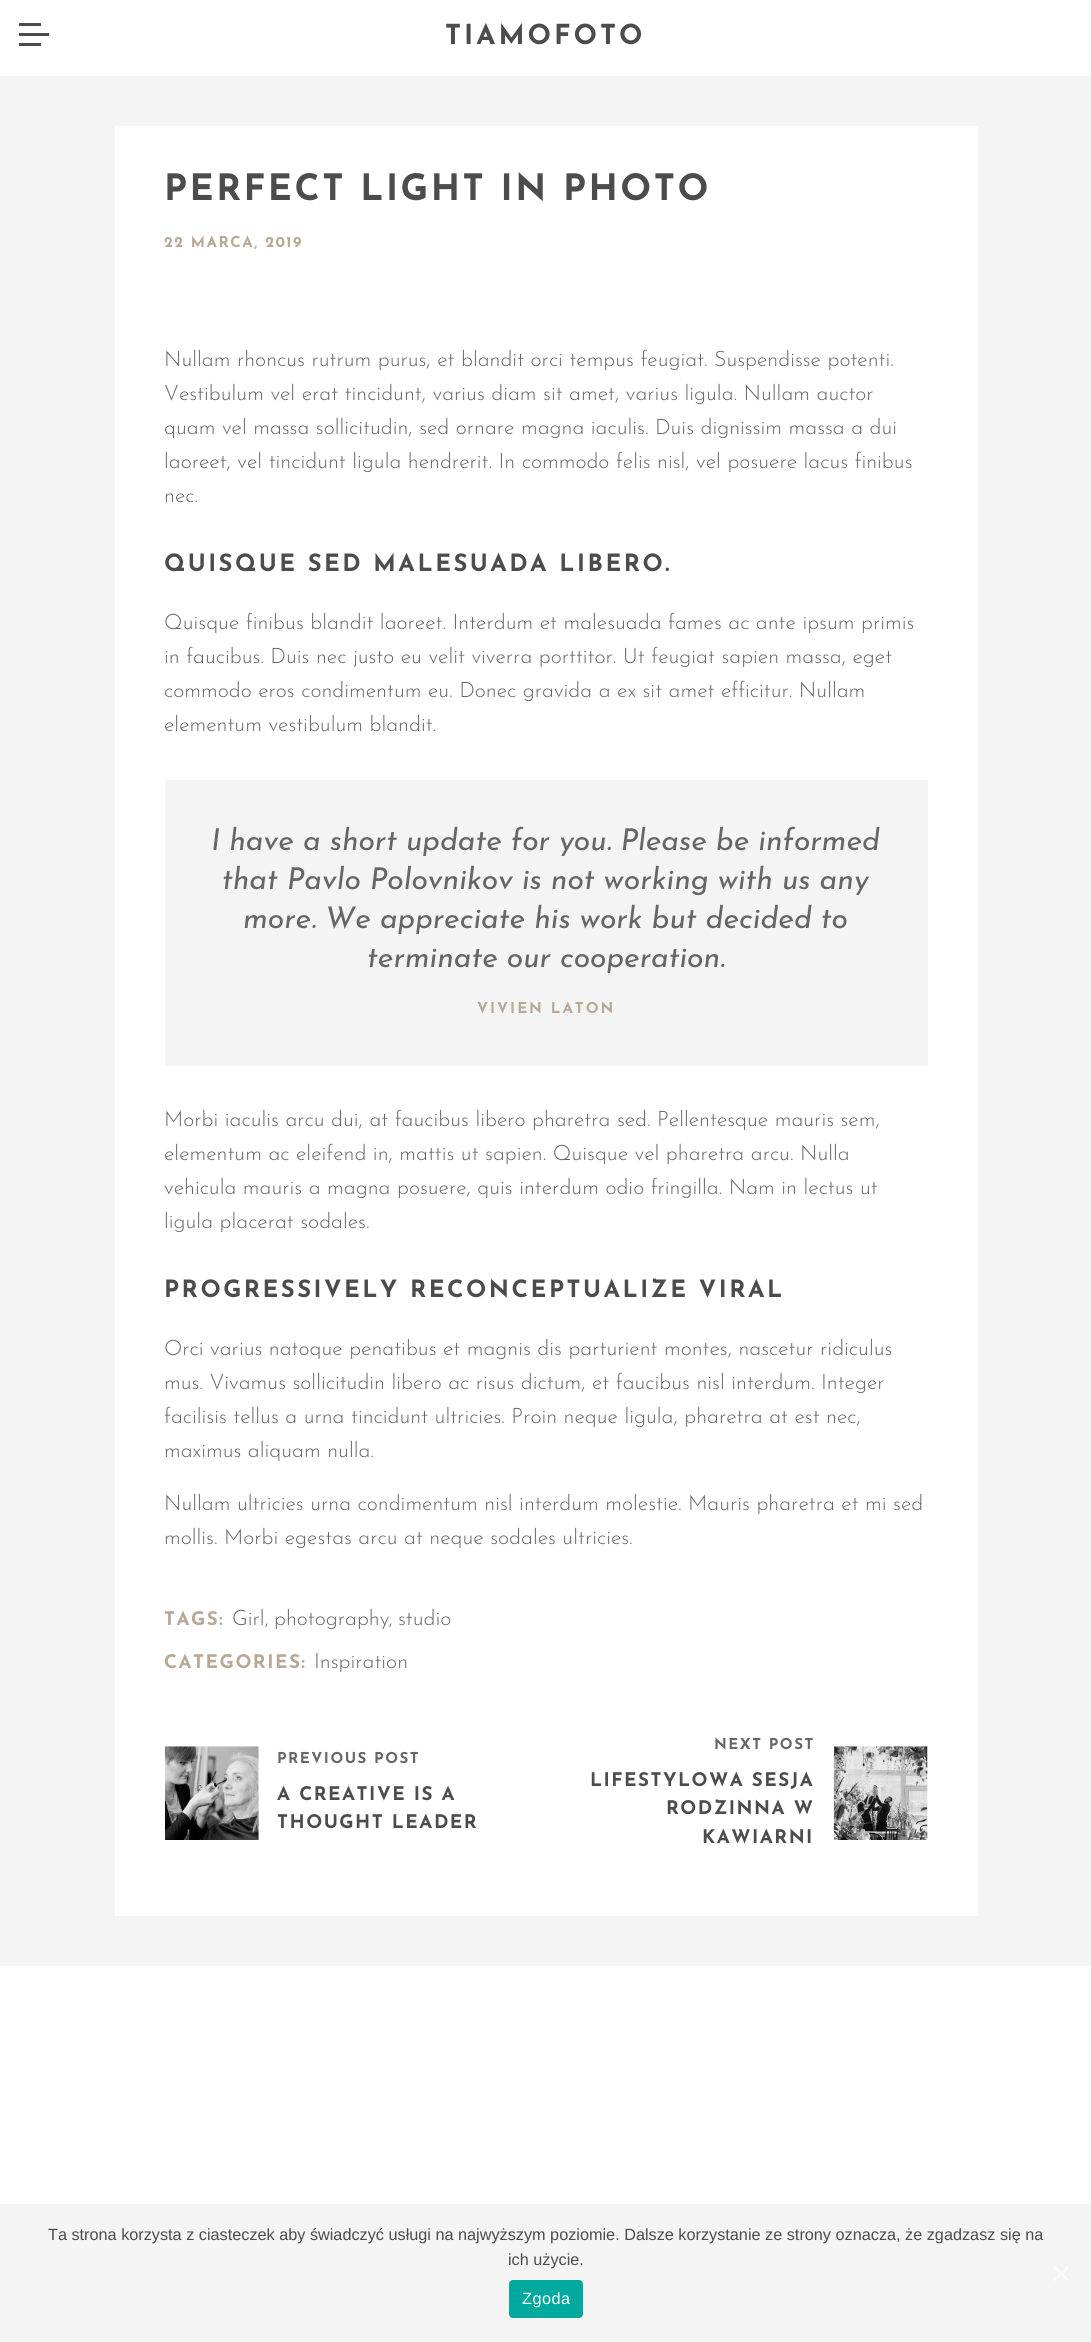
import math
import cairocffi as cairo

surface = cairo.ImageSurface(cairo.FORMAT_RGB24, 1091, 2342)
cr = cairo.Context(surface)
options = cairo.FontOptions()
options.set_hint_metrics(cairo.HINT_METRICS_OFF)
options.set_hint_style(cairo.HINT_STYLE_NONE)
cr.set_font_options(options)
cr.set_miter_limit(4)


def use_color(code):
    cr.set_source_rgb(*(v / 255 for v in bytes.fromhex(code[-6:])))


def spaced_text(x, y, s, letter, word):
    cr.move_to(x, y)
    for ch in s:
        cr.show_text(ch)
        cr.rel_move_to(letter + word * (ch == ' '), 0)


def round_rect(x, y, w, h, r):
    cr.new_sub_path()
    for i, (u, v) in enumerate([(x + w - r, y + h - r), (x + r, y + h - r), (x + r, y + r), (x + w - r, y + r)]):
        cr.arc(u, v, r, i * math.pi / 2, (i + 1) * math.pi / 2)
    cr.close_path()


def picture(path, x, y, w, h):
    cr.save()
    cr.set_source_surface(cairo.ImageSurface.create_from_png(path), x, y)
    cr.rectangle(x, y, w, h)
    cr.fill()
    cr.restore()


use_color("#ffffff")
cr.paint()
use_color("#4c4c4c")
cr.rectangle(19, 23, 22, 3)
cr.fill()
cr.rectangle(19, 33, 30, 3)
cr.fill()
cr.rectangle(19, 43, 22, 3)
cr.fill()
cr.select_font_face("Josefin Sans", cairo.FONT_SLANT_NORMAL, cairo.FONT_WEIGHT_BOLD)
cr.set_font_size(27.5)
spaced_text(445, 44, "TIAMOFOTO", 3, 0)
use_color("#f4f4f4")
cr.rectangle(0, 76, 1091, 1890)
cr.fill()
use_color("#ffffff")
cr.rectangle(115, 126, 863, 1790)
cr.fill()
cr.set_font_size(36.25)
use_color("#4c4c4c")
spaced_text(164, 200, "PERFECT LIGHT IN PHOTO", 2.5, 0)
cr.set_font_size(15)
use_color("#b9a893")
spaced_text(164, 247, "22 MARCA, 2019", 1.5, 0)
cr.select_font_face("Josefin Sans Light")
cr.set_font_size(21.25)
use_color("#666666")
cr.move_to(164, 366)
cr.show_text("Nullam rhoncus rutrum purus, et blandit orci tempus feugiat. Suspendisse potenti.")
cr.move_to(164, 400)
cr.show_text("Vestibulum vel erat tincidunt, varius diam sit amet, varius ligula. Nullam auctor")
cr.move_to(164, 434)
cr.show_text("quam vel massa sollicitudin, sed ornare magna iaculis. Duis dignissim massa a dui")
cr.move_to(164, 468)
cr.show_text("laoreet, vel tincidunt ligula hendrerit. In commodo felis nisl, vel posuere lacus finibus")
cr.move_to(164, 502)
cr.show_text("nec.")
cr.select_font_face("Josefin Sans", cairo.FONT_SLANT_NORMAL, cairo.FONT_WEIGHT_BOLD)
cr.set_font_size(23.75)
use_color("#4c4c4c")
spaced_text(164, 571, "QUISQUE SED MALESUADA LIBERO.", 2.5, 0)
cr.select_font_face("Josefin Sans Light")
cr.set_font_size(21.25)
use_color("#666666")
cr.move_to(164, 629)
cr.show_text("Quisque finibus blandit laoreet. Interdum et malesuada fames ac ante ipsum primis")
cr.move_to(164, 663)
cr.show_text("in faucibus. Duis nec justo eu velit viverra porttitor. Ut feugiat sapien massa, eget")
cr.move_to(164, 697)
cr.show_text("commodo eros condimentum eu. Donec gravida a ex sit amet efficitur. Nullam")
cr.move_to(164, 731)
cr.show_text("elementum vestibulum blandit.")
use_color("#f4f4f4")
cr.rectangle(165, 780, 763, 286)
cr.fill()
cr.select_font_face("Josefin Sans", cairo.FONT_SLANT_ITALIC)
cr.set_font_size(30)
use_color("#666666")
cr.move_to(211, 850)
cr.show_text("I have a short update for you. Please be informed")
cr.move_to(222, 889)
cr.show_text("that Pavlo Polovnikov is not working with us any")
cr.move_to(243, 928)
cr.show_text("more. We appreciate his work but decided to")
cr.move_to(367, 967)
cr.show_text("terminate our cooperation.")
cr.select_font_face("Josefin Sans", cairo.FONT_SLANT_NORMAL, cairo.FONT_WEIGHT_BOLD)
cr.set_font_size(15)
use_color("#b9a893")
spaced_text(477, 1013, "VIVIEN LATON", 2, 0)
cr.select_font_face("Josefin Sans Light")
cr.set_font_size(21.25)
use_color("#666666")
cr.move_to(164, 1126)
cr.show_text("Morbi iaculis arcu dui, at faucibus libero pharetra sed. Pellentesque mauris sem,")
cr.move_to(164, 1160)
cr.show_text("elementum ac eleifend in, mattis ut sapien. Quisque vel pharetra arcu. Nulla")
cr.move_to(164, 1194)
cr.show_text("vehicula mauris a magna posuere, quis interdum odio fringilla. Nam in lectus ut")
cr.move_to(164, 1228)
cr.show_text("ligula placerat sodales.")
cr.select_font_face("Josefin Sans", cairo.FONT_SLANT_NORMAL, cairo.FONT_WEIGHT_BOLD)
cr.set_font_size(23.75)
use_color("#4c4c4c")
spaced_text(164, 1297, "PROGRESSIVELY RECONCEPTUALIZE VIRAL", 2.5, 0)
cr.select_font_face("Josefin Sans Light")
cr.set_font_size(21.25)
use_color("#666666")
cr.move_to(164, 1355)
cr.show_text("Orci varius natoque penatibus et magnis dis parturient montes, nascetur ridiculus")
cr.move_to(164, 1389)
cr.show_text("mus. Vivamus sollicitudin libero ac risus dictum, et faucibus nisl interdum. Integer")
cr.move_to(164, 1423)
cr.show_text("facilisis tellus a urna tincidunt ultricies. Proin neque ligula, pharetra at est nec,")
cr.move_to(164, 1457)
cr.show_text("maximus aliquam nulla.")
cr.move_to(164, 1510)
cr.show_text("Nullam ultricies urna condimentum nisl interdum molestie. Mauris pharetra et mi sed")
cr.move_to(164, 1544)
cr.show_text("mollis. Morbi egestas arcu at neque sodales ultricies.")
cr.select_font_face("Josefin Sans", cairo.FONT_SLANT_NORMAL, cairo.FONT_WEIGHT_BOLD)
cr.set_font_size(18.75)
use_color("#b9a893")
spaced_text(164, 1625, "TAGS:", 1.5, 0)
cr.select_font_face("Josefin Sans Light")
cr.set_font_size(21.25)
use_color("#666666")
cr.move_to(232, 1625)
cr.show_text("Girl")
cr.set_font_size(18)
use_color("#4c4c4c")
cr.move_to(265, 1625)
cr.show_text(",")
cr.set_font_size(21.25)
use_color("#666666")
cr.move_to(274, 1625)
cr.show_text("photography")
cr.set_font_size(18)
use_color("#4c4c4c")
cr.move_to(389, 1625)
cr.show_text(",")
cr.set_font_size(21.25)
use_color("#666666")
cr.move_to(398, 1625)
cr.show_text("studio")
cr.select_font_face("Josefin Sans", cairo.FONT_SLANT_NORMAL, cairo.FONT_WEIGHT_BOLD)
cr.set_font_size(18.75)
use_color("#b9a893")
spaced_text(164, 1668, "CATEGORIES:", 1.5, 0)
cr.select_font_face("Josefin Sans Light")
cr.set_font_size(21.25)
use_color("#666666")
cr.move_to(314, 1668)
cr.show_text("Inspiration")
picture("img1.png", 165, 1746, 94, 94)
cr.select_font_face("Josefin Sans", cairo.FONT_SLANT_NORMAL, cairo.FONT_WEIGHT_BOLD)
cr.set_font_size(15)
spaced_text(277, 1763, "PREVIOUS POST", 1.5, 0)
cr.set_font_size(18.75)
use_color("#4c4c4c")
spaced_text(277, 1800, "A CREATIVE IS A", 1.5, 0)
spaced_text(277, 1828, "THOUGHT LEADER", 1.5, 0)
cr.set_font_size(15)
use_color("#666666")
spaced_text(714, 1749, "NEXT POST", 1.5, 0)
cr.set_font_size(18.75)
use_color("#4c4c4c")
spaced_text(590, 1786, "LIFESTYLOWA SESJA", 1.5, 0)
spaced_text(666, 1814, "RODZINNA W", 1.5, 0)
spaced_text(702, 1843, "KAWIARNI", 1.5, 0)
picture("img2.png", 833, 1746, 95, 94)
use_color("#f4f4f4")
cr.rectangle(0, 2204, 1091, 138)
cr.fill()
cr.select_font_face("Liberation Sans")
cr.set_font_size(16.25)
use_color("#4c4c4c")
cr.move_to(48, 2240)
cr.show_text("Ta strona korzysta z ciasteczek aby świadczyć usługi na najwyższym poziomie. Dalsze korzystanie ze strony oznacza, że zgadzasz się na")
cr.move_to(508, 2265)
cr.show_text("ich użycie.")
use_color("#fafafa")
cr.new_path()
cr.move_to(1067, 2266)
cr.line_to(1069, 2268)
cr.line_to(1055.5, 2281.5)
cr.line_to(1053.5, 2279.5)
cr.close_path()
cr.fill()
cr.new_path()
cr.move_to(1053.5, 2268)
cr.line_to(1055.5, 2266)
cr.line_to(1069, 2279.5)
cr.line_to(1067, 2281.5)
cr.close_path()
cr.fill()
use_color("#00a99d")
round_rect(509, 2280, 74, 38, 4)
cr.fill()
use_color("#ffffff")
spaced_text(522, 2304, "Zgoda", 0.5, 0)
surface.write_to_png("result.png")
